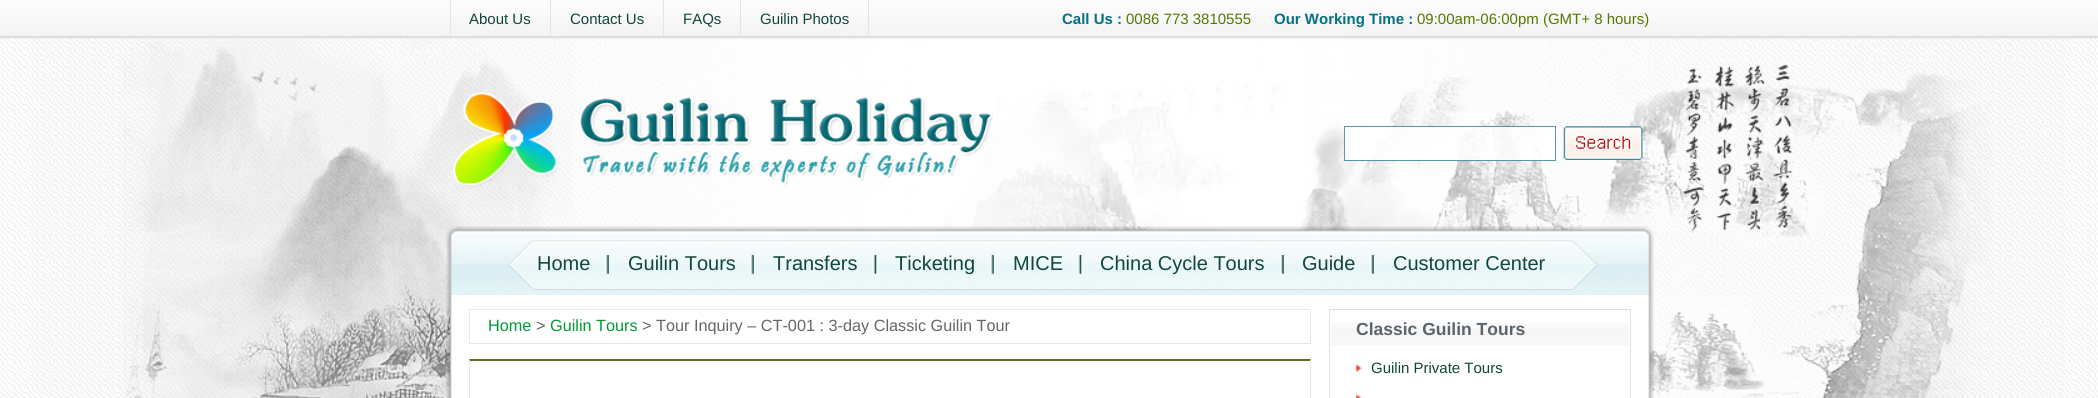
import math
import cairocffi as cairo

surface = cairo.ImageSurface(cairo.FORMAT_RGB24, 2098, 398)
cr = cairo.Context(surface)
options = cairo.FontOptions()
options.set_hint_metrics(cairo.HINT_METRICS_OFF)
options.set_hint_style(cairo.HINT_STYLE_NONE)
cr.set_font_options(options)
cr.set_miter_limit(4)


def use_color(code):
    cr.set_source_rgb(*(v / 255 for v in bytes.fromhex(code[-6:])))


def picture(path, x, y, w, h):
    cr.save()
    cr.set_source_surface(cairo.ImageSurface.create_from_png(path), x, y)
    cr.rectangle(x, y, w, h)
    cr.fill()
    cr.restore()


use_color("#ffffff")
cr.paint()
picture("img1.png", 0, 37, 2098, 361)
picture("img2.png", 35, 37, 2030, 361)
picture("img3.png", 0, 0, 2098, 38)
use_color("#eeeeee")
cr.rectangle(0, 38, 2098, 1)
cr.fill()
use_color("#e4e4e4")
cr.rectangle(550, 0, 1, 38)
cr.fill()
cr.rectangle(450, 0, 1, 38)
cr.fill()
cr.select_font_face("Liberation Sans")
cr.set_font_size(15)
use_color("#11463b")
cr.move_to(469, 24)
cr.show_text("About Us")
use_color("#e4e4e4")
cr.rectangle(663, 0, 1, 38)
cr.fill()
use_color("#11463b")
cr.move_to(570, 24)
cr.show_text("Contact Us")
use_color("#e4e4e4")
cr.rectangle(740, 0, 1, 38)
cr.fill()
use_color("#11463b")
cr.move_to(683, 24)
cr.show_text("FAQs")
use_color("#e4e4e4")
cr.rectangle(868, 0, 1, 38)
cr.fill()
use_color("#11463b")
cr.move_to(760, 24)
cr.show_text("Guilin Photos")
cr.select_font_face("Liberation Sans", cairo.FONT_SLANT_NORMAL, cairo.FONT_WEIGHT_BOLD)
use_color("#037282")
cr.move_to(1062, 24)
cr.show_text("Call Us :")
cr.select_font_face("Liberation Sans")
use_color("#567800")
cr.move_to(1126, 24)
cr.show_text("0086 773 3810555")
cr.select_font_face("Liberation Sans", cairo.FONT_SLANT_NORMAL, cairo.FONT_WEIGHT_BOLD)
use_color("#037282")
cr.move_to(1274, 24)
cr.show_text("Our Working Time :")
cr.select_font_face("Liberation Sans")
use_color("#567800")
cr.move_to(1417, 24)
cr.show_text("09:00am-06:00pm (GMT+ 8 hours)")
picture("img4.png", 452, 92, 541, 95)
cr.set_source_rgba(1, 1, 1, 0.85)
cr.rectangle(1344, 126, 212, 35)
cr.fill()
cr.rectangle(1344.5, 126.5, 211, 34)
cr.set_source_rgba(0.235, 0.522, 0.6, 0.85)
cr.set_line_width(1)
cr.stroke()
picture("img5.png", 1563, 126, 80, 34)
picture("img6.png", 446, 226, 1208, 69)
picture("img7.png", 605, 255, 4, 19)
cr.set_font_size(20)
use_color("#11463b")
cr.move_to(537, 270)
cr.show_text("Home")
picture("img8.png", 750, 255, 4, 19)
cr.move_to(628, 270)
cr.show_text("Guilin Tours")
picture("img9.png", 872, 255, 5, 19)
cr.move_to(773, 270)
cr.show_text("Transfers")
picture("img10.png", 990, 255, 4, 19)
cr.move_to(895, 270)
cr.show_text("Ticketing")
picture("img11.png", 1077, 255, 5, 19)
cr.move_to(1013, 270)
cr.show_text("MICE")
picture("img12.png", 1280, 255, 4, 19)
cr.move_to(1100, 270)
cr.show_text("China Cycle Tours")
picture("img13.png", 1370, 255, 4, 19)
cr.move_to(1302, 270)
cr.show_text("Guide")
cr.move_to(1393, 270)
cr.show_text("Customer Center")
picture("img14.png", 446, 295, 1208, 103)
cr.rectangle(469.5, 309.5, 841, 34)
use_color("#e8e8e8")
cr.stroke()
cr.set_font_size(16.25)
use_color("#009933")
cr.move_to(488, 331)
cr.show_text("Home")
use_color("#666666")
cr.move_to(536, 331)
cr.show_text(">")
use_color("#009933")
cr.move_to(550, 331)
cr.show_text("Guilin Tours")
use_color("#666666")
cr.move_to(642, 331)
cr.show_text("> Tour Inquiry – CT-001 : 3-day Classic Guilin Tour")
use_color("#59701d")
cr.new_path()
cr.move_to(469, 359)
cr.line_to(1311, 359)
cr.line_to(1310, 361)
cr.line_to(470, 361)
cr.close_path()
cr.fill()
use_color("#e5e5e5")
cr.new_path()
cr.move_to(1311, 359)
cr.line_to(1311, 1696)
cr.line_to(1310, 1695)
cr.line_to(1310, 361)
cr.close_path()
cr.fill()
cr.new_path()
cr.move_to(469, 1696)
cr.line_to(469, 359)
cr.line_to(470, 361)
cr.line_to(470, 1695)
cr.close_path()
cr.fill()
cr.rectangle(1329.5, 309.5, 301, 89)
use_color("#e0dede")
cr.stroke()
picture("img15.png", 1331, 323, 298, 23)
cr.select_font_face("Liberation Sans", cairo.FONT_SLANT_NORMAL, cairo.FONT_WEIGHT_BOLD)
cr.set_font_size(17.5)
use_color("#5b646d")
cr.move_to(1356, 335)
cr.show_text("Classic Guilin Tours")
picture("img16.png", 1356, 364, 7, 9)
cr.select_font_face("Liberation Sans")
cr.set_font_size(15)
use_color("#11463b")
cr.move_to(1371, 373)
cr.show_text("Guilin Private Tours")
picture("img17.png", 1356, 394, 7, 4)
surface.write_to_png("result.png")
